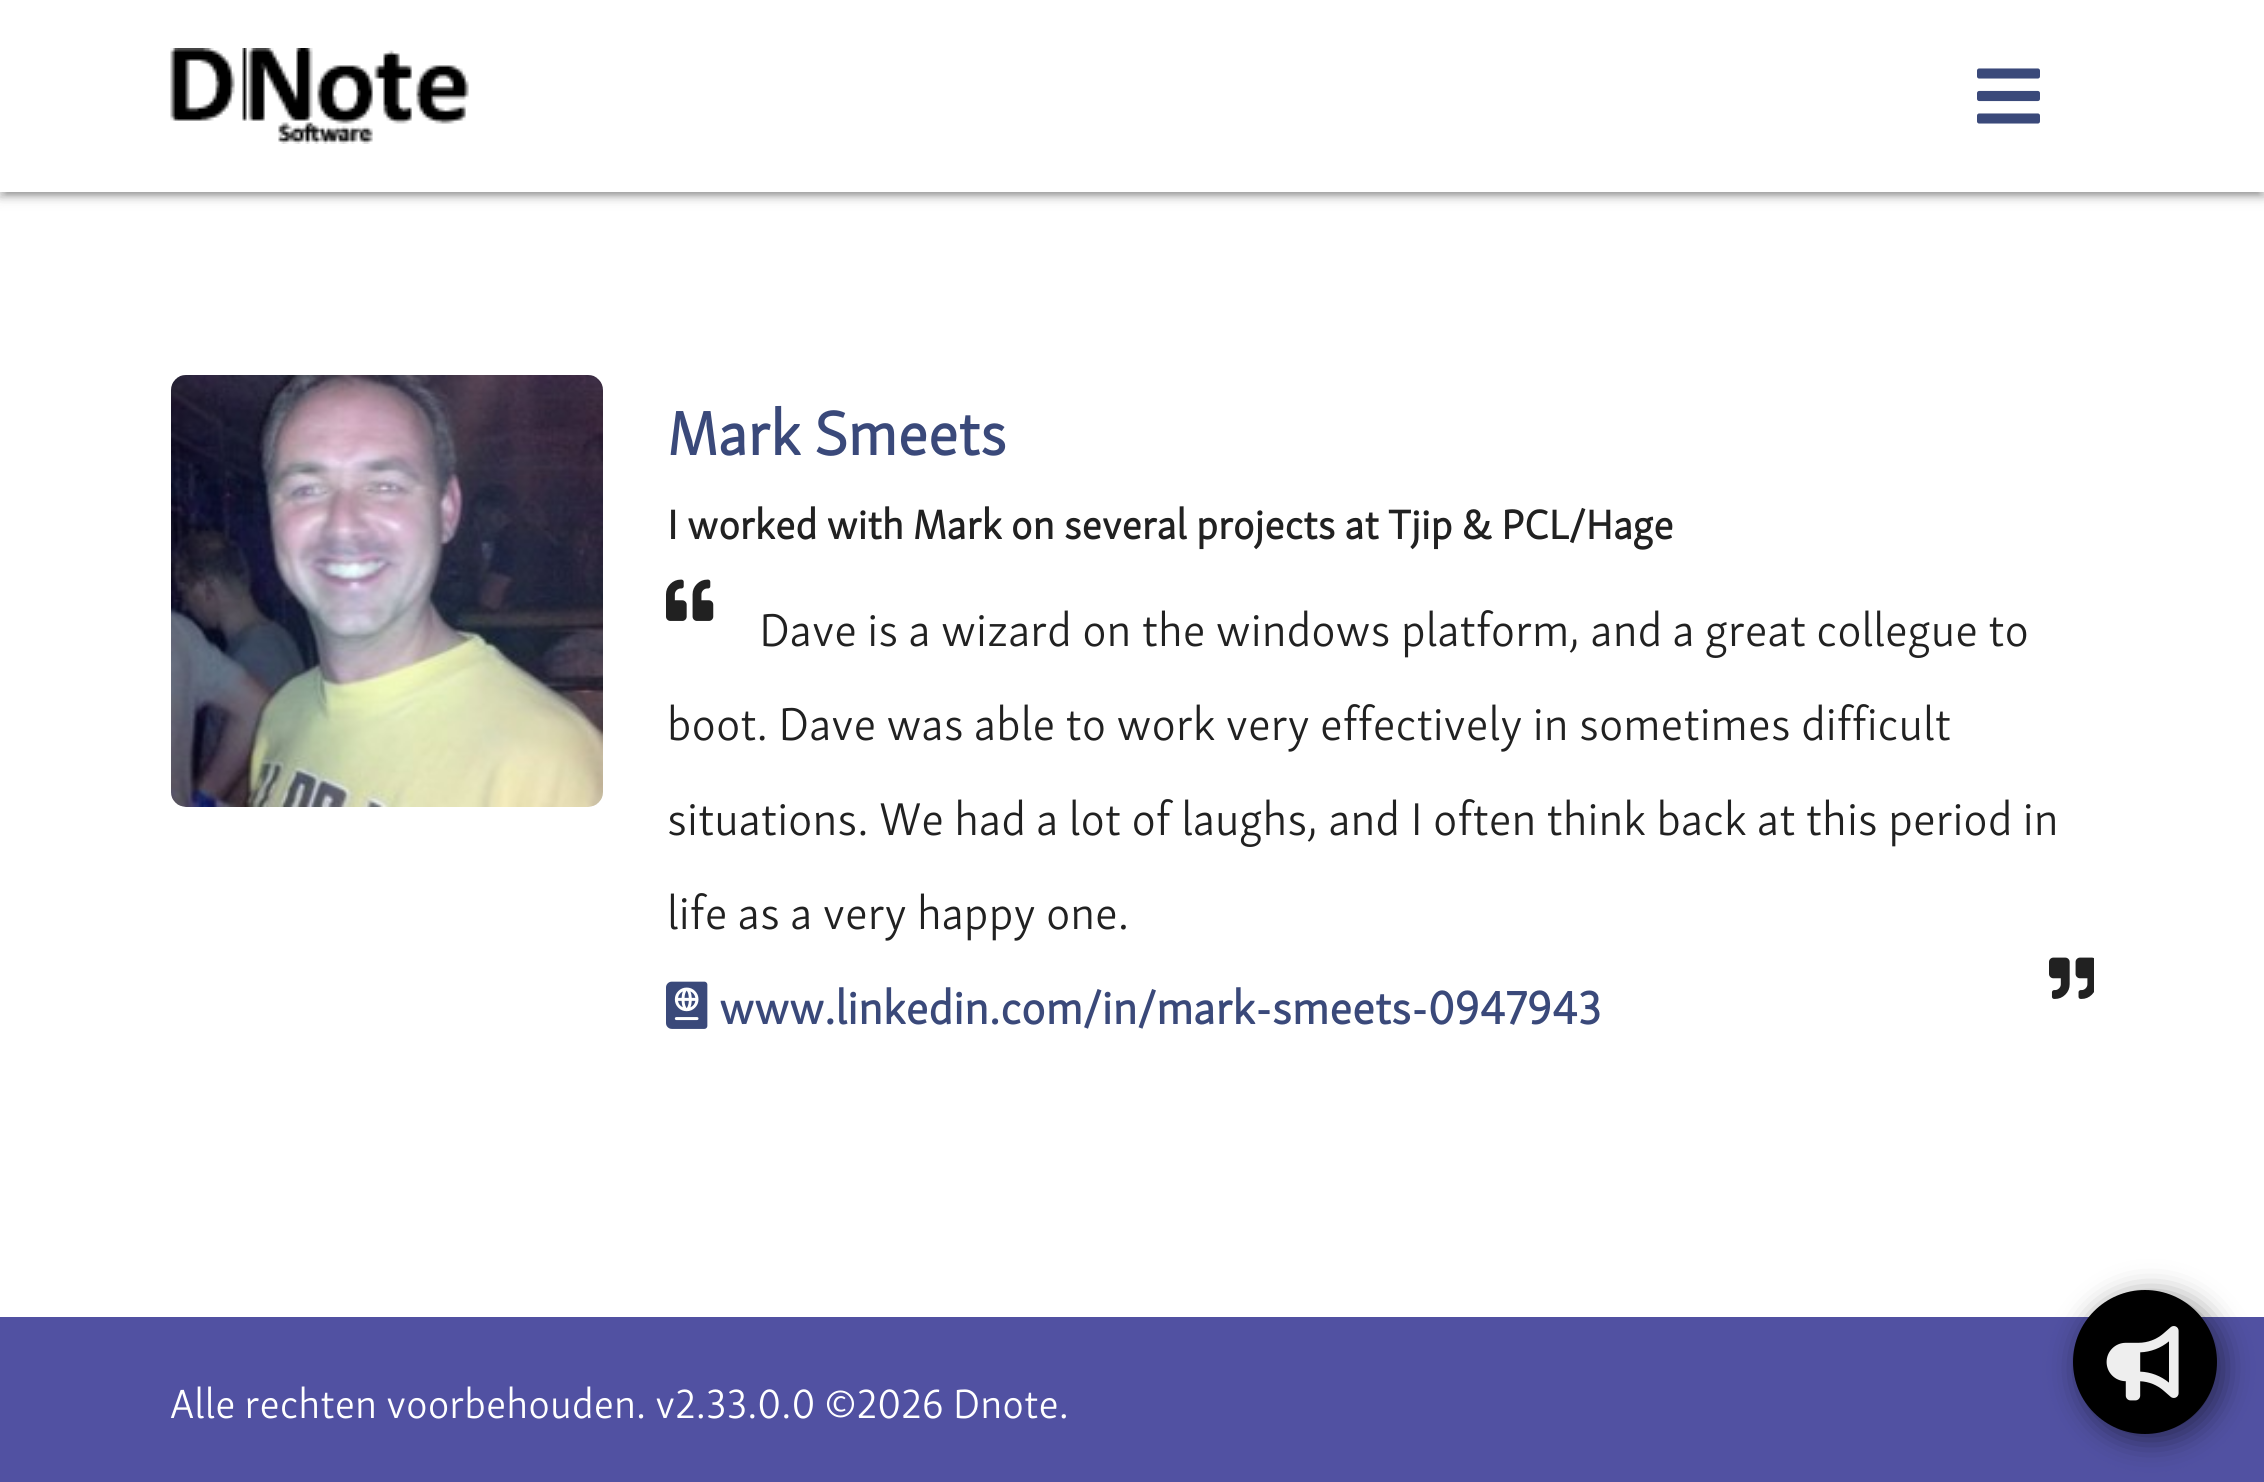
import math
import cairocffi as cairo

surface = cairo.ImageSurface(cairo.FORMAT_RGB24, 2264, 1482)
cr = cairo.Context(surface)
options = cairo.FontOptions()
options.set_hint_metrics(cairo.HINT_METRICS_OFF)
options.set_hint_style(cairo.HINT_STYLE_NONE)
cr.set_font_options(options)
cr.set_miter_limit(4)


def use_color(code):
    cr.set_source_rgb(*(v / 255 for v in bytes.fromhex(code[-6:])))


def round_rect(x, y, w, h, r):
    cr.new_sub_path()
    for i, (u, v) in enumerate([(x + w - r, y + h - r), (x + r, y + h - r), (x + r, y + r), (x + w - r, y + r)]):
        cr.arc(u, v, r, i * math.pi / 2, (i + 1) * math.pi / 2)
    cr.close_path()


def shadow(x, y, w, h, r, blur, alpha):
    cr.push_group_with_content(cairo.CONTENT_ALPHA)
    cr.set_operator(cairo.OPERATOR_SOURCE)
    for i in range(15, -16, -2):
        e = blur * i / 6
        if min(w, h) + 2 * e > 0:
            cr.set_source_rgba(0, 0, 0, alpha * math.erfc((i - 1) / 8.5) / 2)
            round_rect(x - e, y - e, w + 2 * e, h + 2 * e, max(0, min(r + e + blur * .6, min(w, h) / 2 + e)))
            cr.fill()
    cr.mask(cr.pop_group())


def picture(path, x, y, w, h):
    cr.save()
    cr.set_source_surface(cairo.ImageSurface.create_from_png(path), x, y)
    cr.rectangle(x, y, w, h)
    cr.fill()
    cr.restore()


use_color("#ffffff")
cr.paint()
use_color("#000000")
shadow(0, 3, 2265, 192, 0, 7.5, 0.2)
shadow(6, 15, 2253, 180, 0, 1.5, 0.12)
shadow(0, 6, 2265, 192, 0, 3, 0.14)
use_color("#ffffff")
cr.rectangle(0, 0, 2264, 192)
cr.fill()
picture("img1.png", 170, 48, 299, 96)
picture("img2.png", 1977, 68, 63, 56)
picture("img3.png", 171, 375, 432, 432)
cr.select_font_face("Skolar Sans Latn", cairo.FONT_SLANT_NORMAL, cairo.FONT_WEIGHT_BOLD)
cr.set_font_size(63)
use_color("#3a497a")
cr.move_to(667, 455)
cr.show_text("Mark Smeets")
cr.set_font_size(42)
use_color("#212121")
cr.move_to(667, 539)
cr.show_text("I worked with Mark on several projects at Tjip & PCL/Hage")
picture("img4.png", 666, 579, 48, 42)
cr.select_font_face("Skolar Sans Latn Light")
cr.set_font_size(47.25)
cr.move_to(759, 646)
cr.show_text("Dave is a wizard on the windows platform, and a great collegue to")
cr.move_to(667, 740)
cr.show_text("boot. Dave was able to work very effectively in sometimes difficult")
cr.move_to(667, 835)
cr.show_text("situations. We had a lot of laughs, and I often think back at this period in")
cr.move_to(667, 929)
cr.show_text("life as a very happy one.")
picture("img5.png", 2049, 957, 45, 42)
picture("img6.png", 666, 981, 42, 48)
cr.select_font_face("Skolar Sans Latn", cairo.FONT_SLANT_NORMAL, cairo.FONT_WEIGHT_BOLD)
use_color("#3a497a")
cr.move_to(719, 1024)
cr.show_text("www.linkedin.com/in/mark-smeets-0947943")
use_color("#5151a2")
cr.rectangle(0, 1317, 2264, 165)
cr.fill()
cr.select_font_face("Skolar Sans Latn Light")
cr.set_font_size(42)
use_color("#ffffff")
cr.move_to(170, 1418)
cr.show_text("Alle rechten voorbehouden. v2.33.0.0 ©2026 Dnote.")
use_color("#000000")
shadow(2079, 1296, 144, 144, 72, 15, 0.5)
use_color("#000000")
cr.arc(2145, 1362, 72, 0, 2 * math.pi)
cr.fill()
picture("img7.png", 2106, 1326, 73, 75)
surface.write_to_png("result.png")
